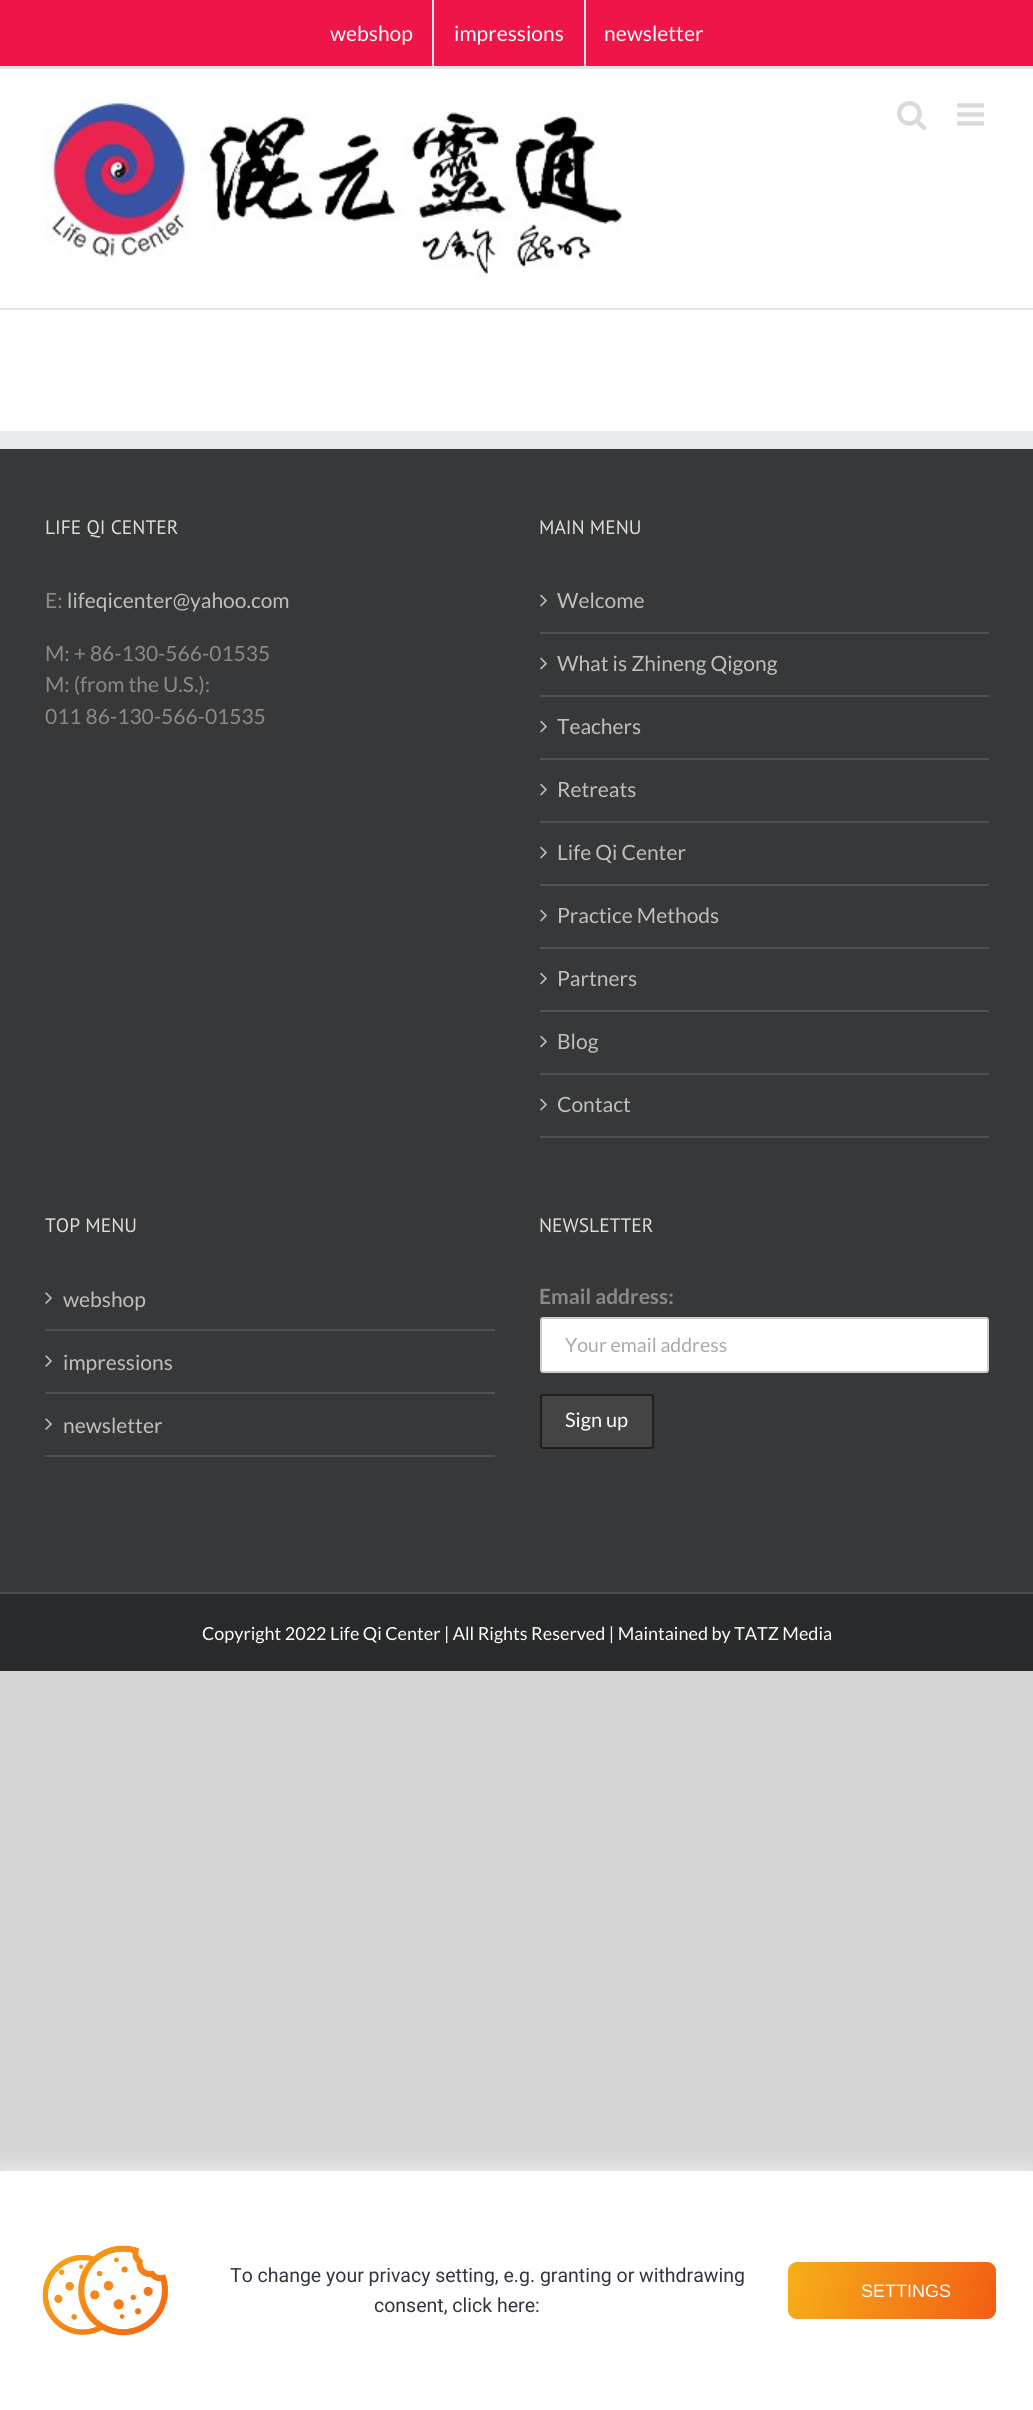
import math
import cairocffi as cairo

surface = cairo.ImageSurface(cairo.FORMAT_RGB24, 1033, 2410)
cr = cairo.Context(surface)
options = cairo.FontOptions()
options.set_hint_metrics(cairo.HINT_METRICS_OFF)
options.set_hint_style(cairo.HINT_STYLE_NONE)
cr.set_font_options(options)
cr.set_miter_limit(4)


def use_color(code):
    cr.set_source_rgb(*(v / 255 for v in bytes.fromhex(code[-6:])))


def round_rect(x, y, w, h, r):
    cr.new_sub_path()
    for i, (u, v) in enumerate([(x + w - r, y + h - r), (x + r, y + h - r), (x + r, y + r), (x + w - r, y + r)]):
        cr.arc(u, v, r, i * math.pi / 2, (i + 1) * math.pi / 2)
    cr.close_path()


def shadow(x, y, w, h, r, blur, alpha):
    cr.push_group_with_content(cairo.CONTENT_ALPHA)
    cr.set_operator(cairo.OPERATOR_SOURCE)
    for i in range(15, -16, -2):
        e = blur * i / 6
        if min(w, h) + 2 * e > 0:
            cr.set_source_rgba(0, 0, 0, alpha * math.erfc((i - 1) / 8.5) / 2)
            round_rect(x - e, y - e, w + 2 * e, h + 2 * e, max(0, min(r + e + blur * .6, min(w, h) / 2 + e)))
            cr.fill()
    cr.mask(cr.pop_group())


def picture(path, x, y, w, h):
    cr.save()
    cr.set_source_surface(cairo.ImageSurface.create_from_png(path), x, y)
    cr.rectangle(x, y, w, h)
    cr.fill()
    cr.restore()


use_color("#d7d6d6")
cr.paint()
use_color("#ffffff")
cr.rectangle(0, 310, 1033, 121)
cr.fill()
use_color("#ef1548")
cr.rectangle(0, 0, 1033, 66)
cr.fill()
use_color("#e5e5e5")
cr.rectangle(0, 66, 1033, 3)
cr.fill()
cr.select_font_face("Lato")
cr.set_font_size(21)
use_color("#ffffff")
cr.move_to(330, 41)
cr.show_text("webshop")
use_color("#e5e5e5")
cr.rectangle(432, 0, 2, 66)
cr.fill()
use_color("#ffffff")
cr.move_to(454, 41)
cr.show_text("impressions")
use_color("#e5e5e5")
cr.rectangle(584, 0, 2, 66)
cr.fill()
use_color("#ffffff")
cr.move_to(604, 41)
cr.show_text("newsletter")
cr.rectangle(0, 69, 1033, 239)
cr.fill()
use_color("#e5e5e5")
cr.rectangle(0, 308, 1033, 2)
cr.fill()
picture("img1.png", 45, 99, 577, 178)
picture("img2.png", 897, 101, 30, 30)
picture("img3.png", 957, 103, 27, 23)
use_color("#363839")
cr.rectangle(0, 449, 1033, 1143)
cr.fill()
use_color("#e9eaee")
cr.rectangle(0, 431, 1033, 18)
cr.fill()
cr.select_font_face("PT Sans")
cr.set_font_size(19.5)
use_color("#dddddd")
cr.move_to(45, 534)
cr.show_text("LIFE QI CENTER")
cr.select_font_face("Lato")
cr.set_font_size(21)
use_color("#8c8989")
cr.move_to(45, 608)
cr.show_text("E:")
use_color("#bfbfbf")
cr.move_to(67, 608)
cr.show_text("lifeqicenter@yahoo.com")
use_color("#8c8989")
cr.move_to(45, 661)
cr.show_text("M: + 86-130-566-01535")
cr.move_to(45, 692)
cr.show_text("M: (from the U.S.):")
cr.move_to(45, 724)
cr.show_text("011 86-130-566-01535")
cr.select_font_face("PT Sans")
cr.set_font_size(19.5)
use_color("#dddddd")
cr.move_to(539, 534)
cr.show_text("MAIN MENU")
use_color("#505152")
cr.rectangle(540, 632, 449, 2)
cr.fill()
picture("img4.png", 540, 594, 7, 13)
cr.select_font_face("Lato")
cr.set_font_size(21)
use_color("#bfbfbf")
cr.move_to(557, 608)
cr.show_text("Welcome")
use_color("#505152")
cr.rectangle(540, 695, 449, 2)
cr.fill()
picture("img4.png", 540, 657, 7, 13)
use_color("#bfbfbf")
cr.move_to(557, 671)
cr.show_text("What is Zhineng Qigong")
use_color("#505152")
cr.rectangle(540, 758, 449, 2)
cr.fill()
picture("img4.png", 540, 720, 7, 13)
use_color("#bfbfbf")
cr.move_to(557, 734)
cr.show_text("Teachers")
use_color("#505152")
cr.rectangle(540, 821, 449, 2)
cr.fill()
picture("img4.png", 540, 783, 7, 13)
use_color("#bfbfbf")
cr.move_to(557, 797)
cr.show_text("Retreats")
use_color("#505152")
cr.rectangle(540, 884, 449, 2)
cr.fill()
picture("img4.png", 540, 846, 7, 13)
use_color("#bfbfbf")
cr.move_to(557, 860)
cr.show_text("Life Qi Center")
use_color("#505152")
cr.rectangle(540, 947, 449, 2)
cr.fill()
picture("img4.png", 540, 909, 7, 13)
use_color("#bfbfbf")
cr.move_to(557, 923)
cr.show_text("Practice Methods")
use_color("#505152")
cr.rectangle(540, 1010, 449, 2)
cr.fill()
picture("img4.png", 540, 972, 7, 13)
use_color("#bfbfbf")
cr.move_to(557, 986)
cr.show_text("Partners")
use_color("#505152")
cr.rectangle(540, 1073, 449, 2)
cr.fill()
picture("img4.png", 540, 1035, 7, 13)
use_color("#bfbfbf")
cr.move_to(557, 1049)
cr.show_text("Blog")
use_color("#505152")
cr.rectangle(540, 1136, 449, 2)
cr.fill()
picture("img4.png", 540, 1098, 7, 13)
use_color("#bfbfbf")
cr.move_to(557, 1112)
cr.show_text("Contact")
cr.select_font_face("PT Sans")
cr.set_font_size(19.5)
use_color("#dddddd")
cr.move_to(45, 1232)
cr.show_text("TOP MENU")
use_color("#505152")
cr.rectangle(45, 1329, 450, 2)
cr.fill()
picture("img5.png", 45, 1292, 7, 12)
cr.select_font_face("Lato")
cr.set_font_size(21)
use_color("#bfbfbf")
cr.move_to(63, 1307)
cr.show_text("webshop")
use_color("#505152")
cr.rectangle(45, 1392, 450, 2)
cr.fill()
picture("img5.png", 45, 1355, 7, 12)
use_color("#bfbfbf")
cr.move_to(63, 1370)
cr.show_text("impressions")
use_color("#505152")
cr.rectangle(45, 1455, 450, 2)
cr.fill()
picture("img5.png", 45, 1418, 7, 12)
use_color("#bfbfbf")
cr.move_to(63, 1433)
cr.show_text("newsletter")
cr.select_font_face("PT Sans")
cr.set_font_size(19.5)
use_color("#dddddd")
cr.move_to(539, 1232)
cr.show_text("NEWSLETTER")
cr.select_font_face("Lato", cairo.FONT_SLANT_NORMAL, cairo.FONT_WEIGHT_BOLD)
cr.set_font_size(21)
use_color("#8c8989")
cr.move_to(539, 1304)
cr.show_text("Email address:")
use_color("#ffffff")
round_rect(541, 1318, 447, 54, 2)
cr.fill_preserve()
use_color("#cccccc")
cr.stroke()
cr.select_font_face("Lato")
cr.set_font_size(19.5)
use_color("#aaa9a9")
cr.move_to(565, 1352)
cr.show_text("Your email address")
use_color("#444444")
round_rect(541, 1395, 112, 53, 2)
cr.fill_preserve()
use_color("#1e1e1e")
cr.stroke()
cr.set_font_size(20)
use_color("#ffffff")
cr.move_to(565, 1427)
cr.show_text("Sign up")
use_color("#282a2b")
cr.rectangle(0, 1594, 1033, 77)
cr.fill()
use_color("#4b4c4d")
cr.rectangle(0, 1592, 1033, 2)
cr.fill()
cr.set_font_size(18)
use_color("#ffffff")
cr.move_to(202, 1640)
cr.show_text("Copyright 2022 Life Qi Center | All Rights Reserved | Maintained by TATZ Media")
use_color("#e4e4e4")
shadow(0, 2163, 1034, 240, 0, 4, 1)
use_color("#ffffff")
cr.rectangle(0, 2171, 1033, 239)
cr.fill()
picture("img6.png", 42, 2245, 126, 91)
cr.select_font_face("Roboto")
cr.set_font_size(19.5)
use_color("#323640")
cr.move_to(230, 2282)
cr.show_text("To change your privacy setting, e.g. granting or withdrawing")
cr.move_to(374, 2312)
cr.show_text("consent, click here:")
gradient = cairo.LinearGradient(787, 2264, 997, 2317)
gradient.add_color_stop_rgba(0, 0.965, 0.69, 0.098, 1)
gradient.add_color_stop_rgba(1, 0.953, 0.365, 0.078, 1)
cr.set_source(gradient)
round_rect(788, 2262, 208, 57, 9)
cr.fill()
cr.select_font_face("Liberation Sans")
cr.set_font_size(18)
use_color("#ffffff")
cr.move_to(861, 2297)
cr.show_text("SETTINGS")
surface.write_to_png("result.png")
